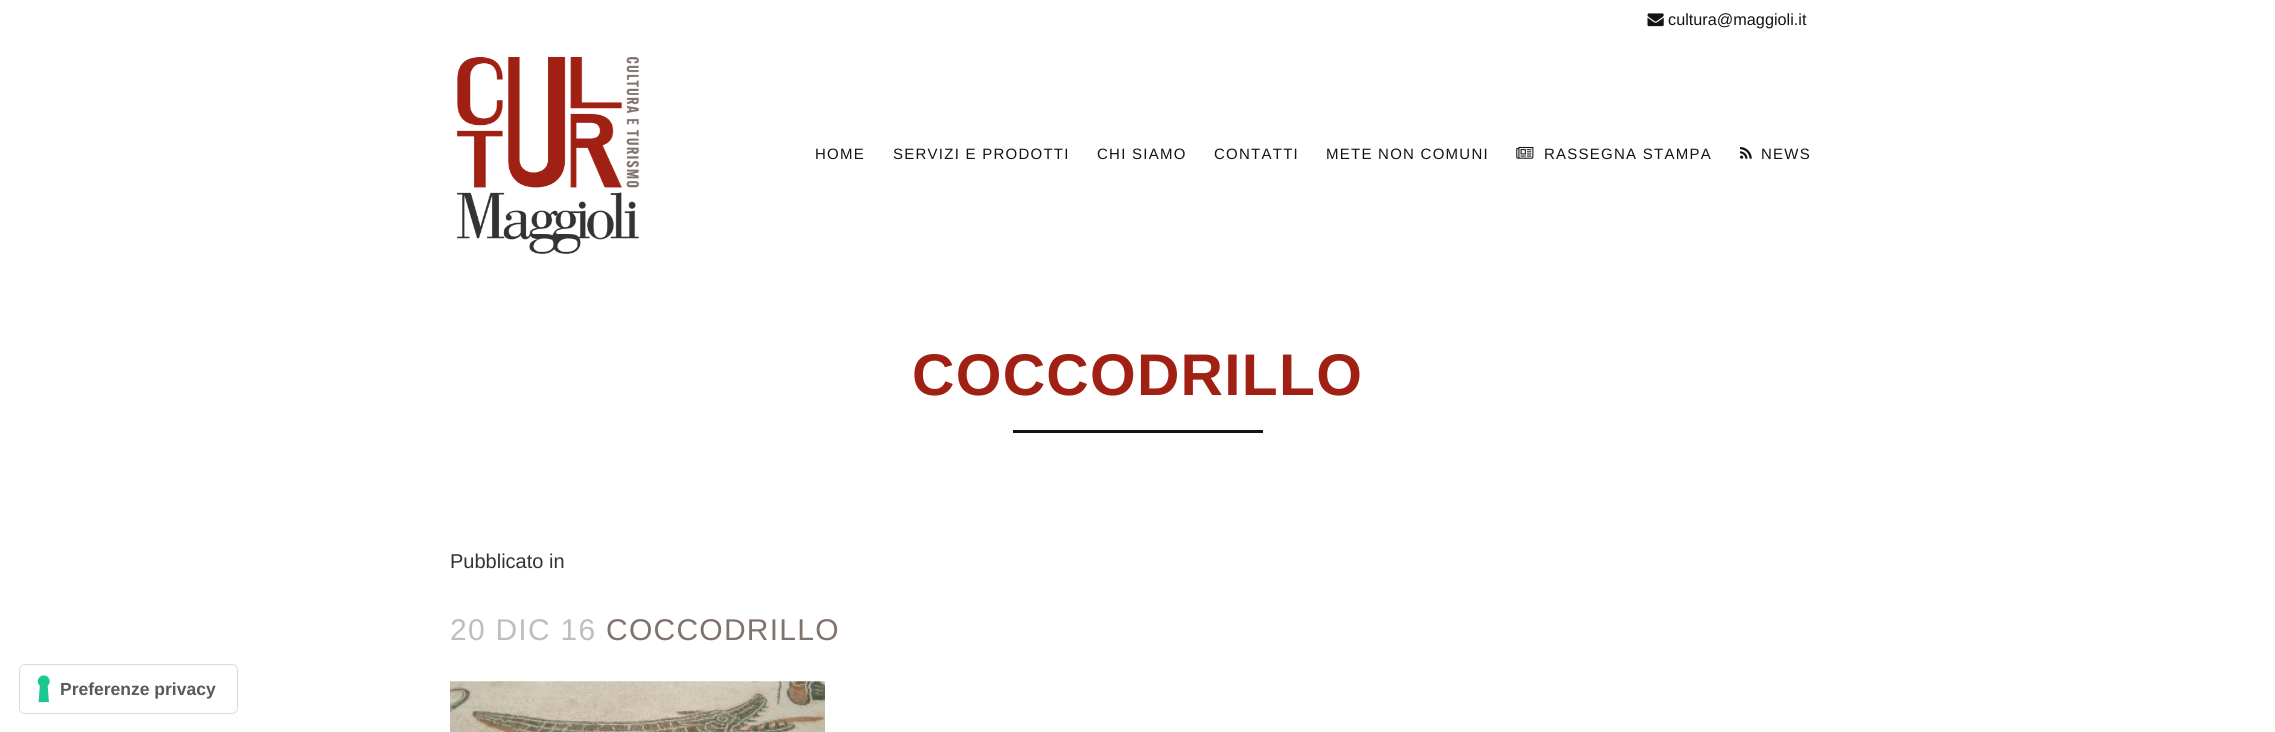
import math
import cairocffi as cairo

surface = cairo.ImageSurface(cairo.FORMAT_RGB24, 2275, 732)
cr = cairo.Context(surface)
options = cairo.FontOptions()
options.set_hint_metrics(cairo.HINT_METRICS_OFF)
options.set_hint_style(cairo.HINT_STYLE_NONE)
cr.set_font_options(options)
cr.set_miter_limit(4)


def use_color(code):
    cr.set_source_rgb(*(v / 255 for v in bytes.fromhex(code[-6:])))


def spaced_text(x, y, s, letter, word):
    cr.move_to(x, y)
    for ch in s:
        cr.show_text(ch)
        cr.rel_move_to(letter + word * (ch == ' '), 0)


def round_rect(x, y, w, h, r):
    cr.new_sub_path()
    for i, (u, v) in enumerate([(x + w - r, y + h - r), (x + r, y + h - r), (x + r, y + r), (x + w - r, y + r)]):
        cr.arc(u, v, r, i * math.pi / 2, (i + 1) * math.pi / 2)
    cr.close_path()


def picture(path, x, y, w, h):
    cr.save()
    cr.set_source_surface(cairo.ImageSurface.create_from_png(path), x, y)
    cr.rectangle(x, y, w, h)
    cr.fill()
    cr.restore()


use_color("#ffffff")
cr.paint()
picture("img1.png", 1647, 13, 17, 14)
cr.select_font_face("Liberation Sans")
cr.set_font_size(16.25)
use_color("#141414")
cr.move_to(1668, 25)
cr.show_text("cultura@maggioli.it")
picture("img2.png", 456, 56, 184, 198)
cr.set_font_size(15)
spaced_text(815, 159, "HOME", 1.25, 0)
spaced_text(893, 159, "SERVIZI E PRODOTTI", 1.25, 0)
spaced_text(1097, 159, "CHI SIAMO", 1.25, 0)
spaced_text(1214, 159, "CONTATTI", 1.25, 0)
spaced_text(1326, 159, "METE NON COMUNI", 1.25, 0)
picture("img3.png", 1516, 146, 18, 13)
spaced_text(1544, 159, "RASSEGNA STAMPA", 1.25, 0)
picture("img4.png", 1740, 147, 12, 12)
spaced_text(1761, 159, "NEWS", 1.25, 0)
cr.select_font_face("Liberation Sans", cairo.FONT_SLANT_NORMAL, cairo.FONT_WEIGHT_BOLD)
cr.set_font_size(58.75)
use_color("#a02014")
spaced_text(912, 395, "COCCODRILLO", 1.25, 0)
use_color("#141414")
cr.rectangle(1013, 430, 250, 3)
cr.fill()
cr.select_font_face("Liberation Sans")
cr.set_font_size(20)
use_color("#333333")
cr.move_to(450, 568)
cr.show_text("Pubblicato in")
cr.set_font_size(30)
use_color("#bebebe")
spaced_text(450, 640, "20 DIC 16", 1.25, 0)
use_color("#80726c")
spaced_text(606, 640, "COCCODRILLO", 1.25, 0)
picture("img5.png", 450, 681, 375, 51)
round_rect(19.5, 664.5, 218, 49, 5.5)
use_color("#d9d9d9")
cr.set_line_width(1)
cr.stroke()
use_color("#ffffff")
round_rect(20, 665, 216, 48, 5)
cr.fill()
picture("img6.png", 37, 675, 13, 28)
cr.select_font_face("Liberation Sans", cairo.FONT_SLANT_NORMAL, cairo.FONT_WEIGHT_BOLD)
cr.set_font_size(17.5)
use_color("#595959")
cr.move_to(60, 695)
cr.show_text("Preferenze privacy")
surface.write_to_png("result.png")
